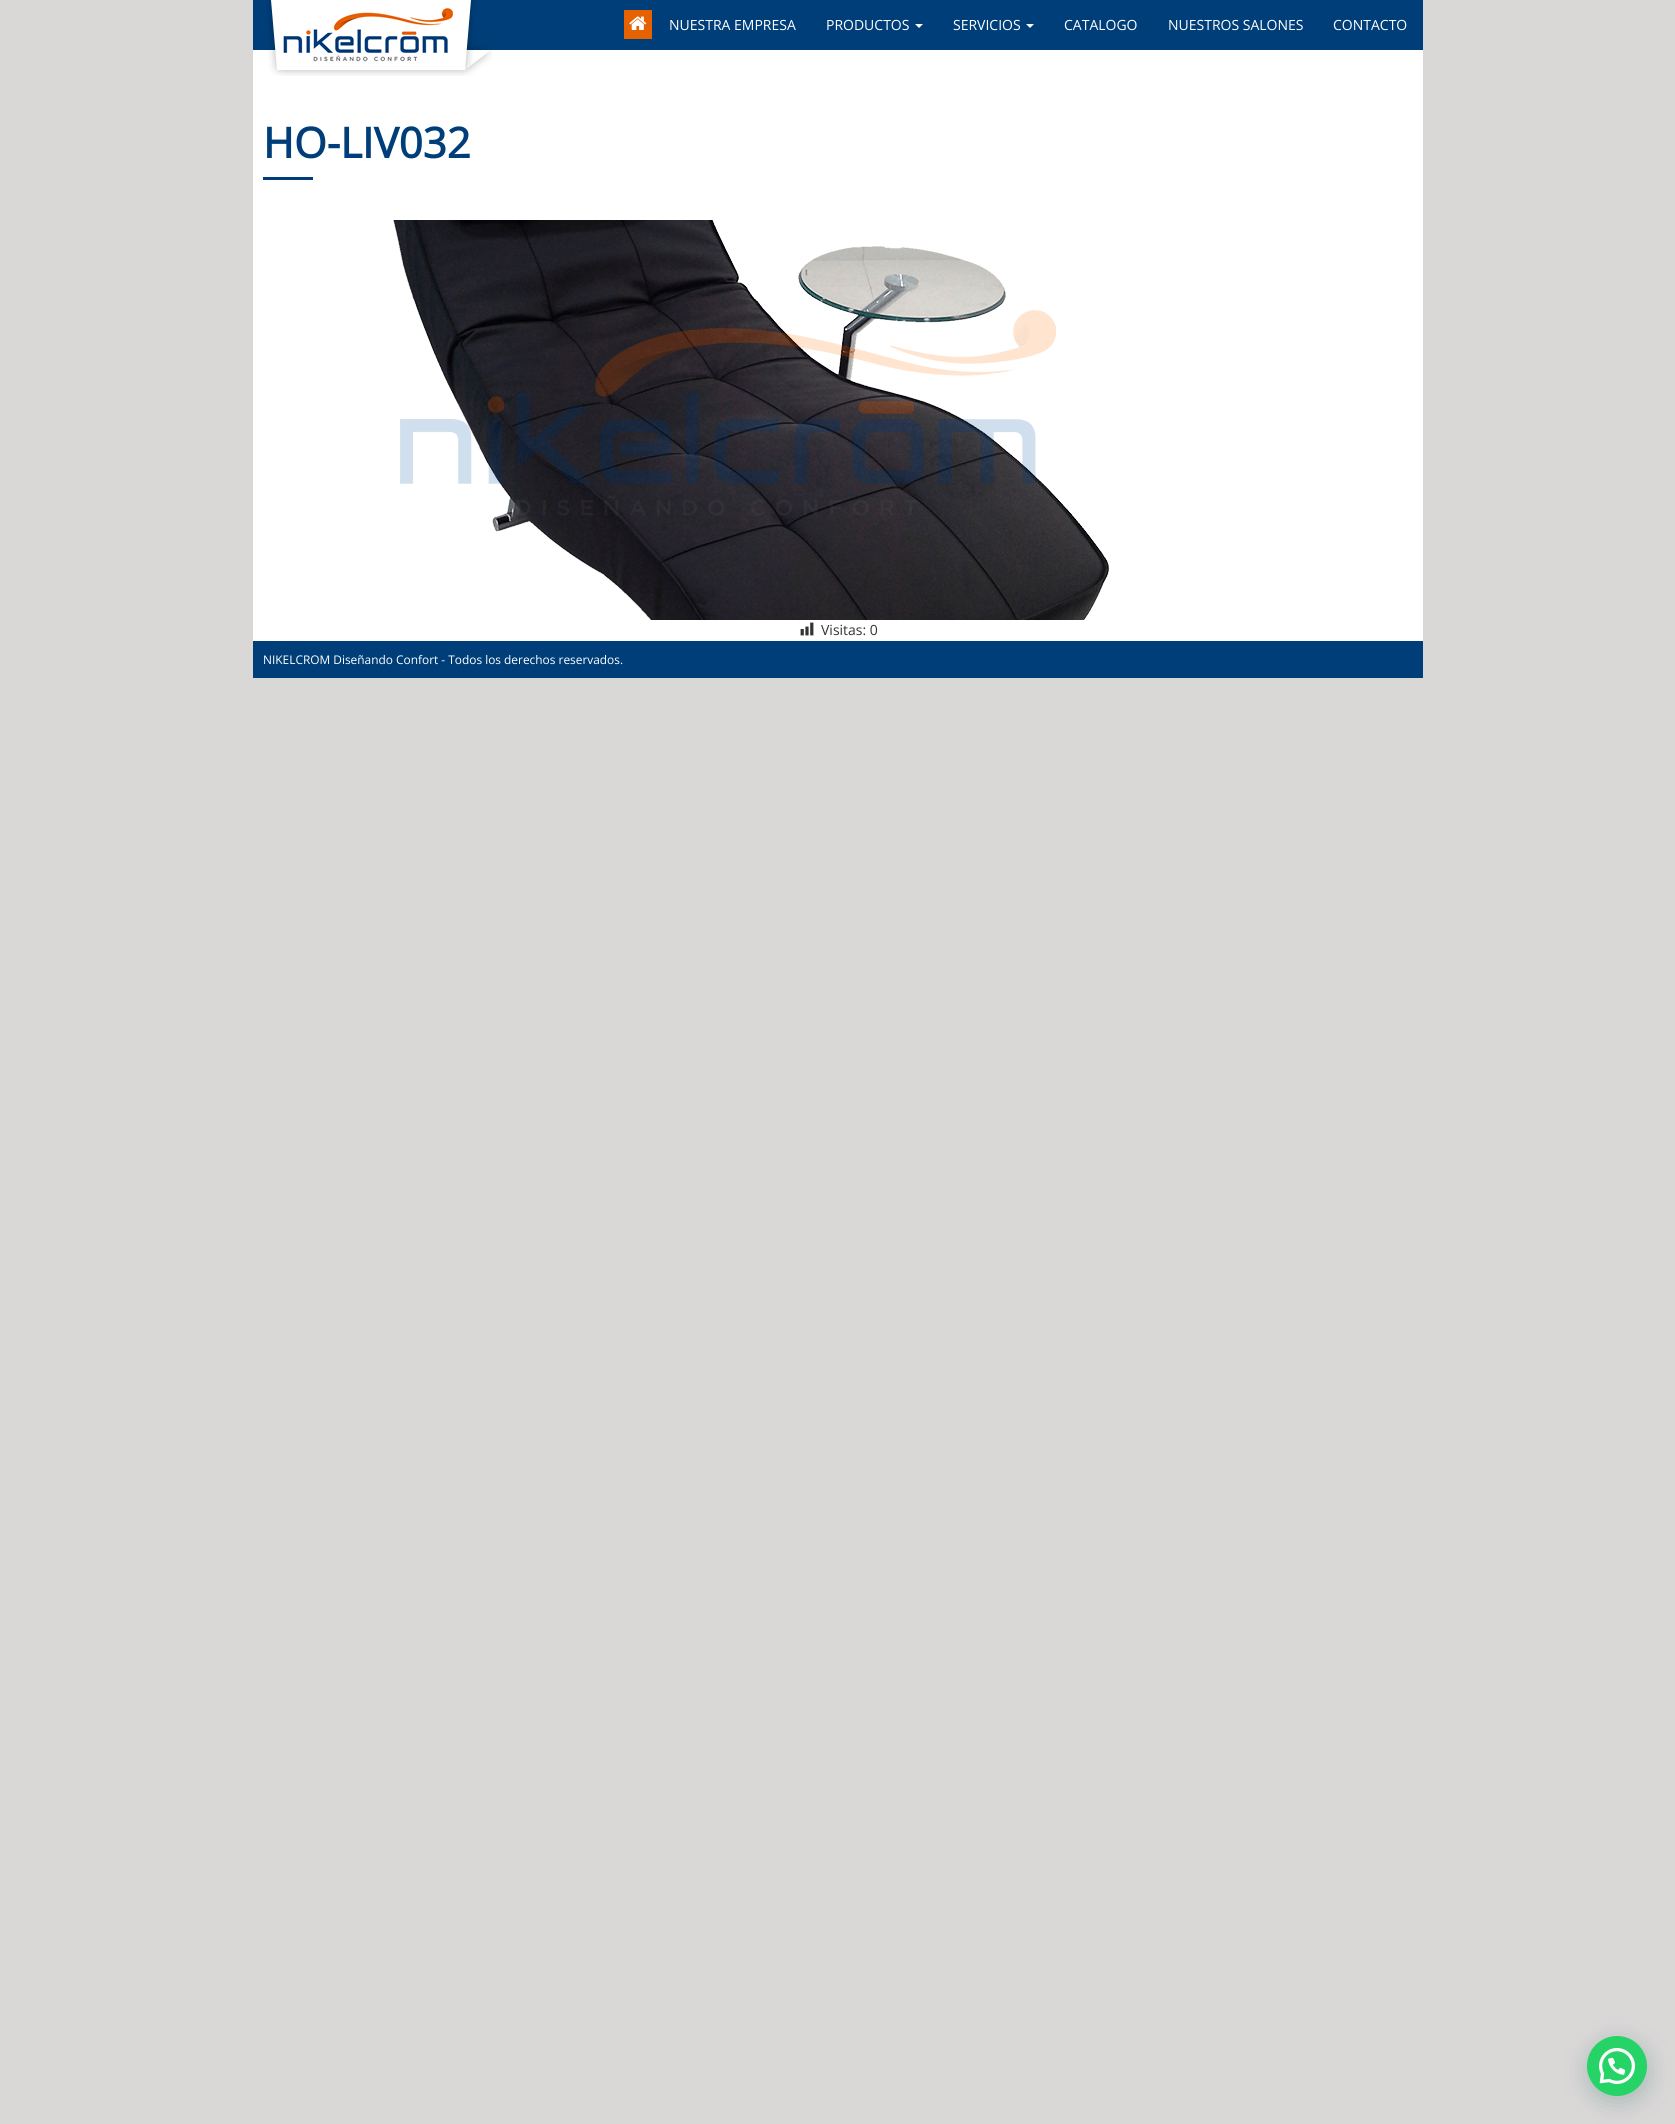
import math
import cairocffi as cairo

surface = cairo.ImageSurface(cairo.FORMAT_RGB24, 1675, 2124)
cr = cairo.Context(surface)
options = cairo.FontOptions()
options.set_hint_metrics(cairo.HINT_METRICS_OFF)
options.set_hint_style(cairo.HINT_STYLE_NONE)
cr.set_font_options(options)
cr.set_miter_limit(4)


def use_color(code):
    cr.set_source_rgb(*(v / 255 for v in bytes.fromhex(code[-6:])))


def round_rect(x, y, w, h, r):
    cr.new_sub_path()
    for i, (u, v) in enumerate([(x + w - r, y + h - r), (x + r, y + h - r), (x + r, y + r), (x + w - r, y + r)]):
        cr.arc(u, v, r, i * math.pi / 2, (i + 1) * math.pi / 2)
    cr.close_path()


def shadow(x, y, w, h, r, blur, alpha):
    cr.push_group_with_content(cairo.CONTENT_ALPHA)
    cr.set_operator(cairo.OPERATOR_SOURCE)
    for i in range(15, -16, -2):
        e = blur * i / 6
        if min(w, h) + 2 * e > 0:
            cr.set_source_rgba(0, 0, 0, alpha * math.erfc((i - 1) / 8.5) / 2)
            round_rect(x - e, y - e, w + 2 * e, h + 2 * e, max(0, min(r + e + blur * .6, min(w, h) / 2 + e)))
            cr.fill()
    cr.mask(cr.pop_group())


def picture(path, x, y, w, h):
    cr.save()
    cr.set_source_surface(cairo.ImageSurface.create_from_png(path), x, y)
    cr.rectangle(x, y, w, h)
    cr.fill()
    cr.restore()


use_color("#dad7d7")
cr.paint()
use_color("#003e79")
cr.rectangle(253, 0, 1170, 50)
cr.fill()
use_color("#ffffff")
cr.rectangle(253, 50, 1170, 591)
cr.fill()
picture("img1.png", 266, 0, 226, 76)
use_color("#e66100")
cr.rectangle(624, 10, 28, 29)
cr.fill()
picture("img2.png", 629, 16, 18, 14)
cr.select_font_face("Open Sans")
cr.set_font_size(14)
use_color("#ffffff")
cr.move_to(669, 30)
cr.show_text("NUESTRA EMPRESA")
cr.move_to(826, 30)
cr.show_text("PRODUCTOS")
cr.new_path()
cr.move_to(915, 24)
cr.line_to(923, 24)
cr.line_to(919, 28)
cr.close_path()
cr.fill()
cr.move_to(953, 30)
cr.show_text("SERVICIOS")
cr.new_path()
cr.move_to(1026, 24)
cr.line_to(1034, 24)
cr.line_to(1030, 28)
cr.close_path()
cr.fill()
cr.move_to(1064, 30)
cr.show_text("CATALOGO")
cr.move_to(1168, 30)
cr.show_text("NUESTROS SALONES")
cr.move_to(1333, 30)
cr.show_text("CONTACTO")
cr.select_font_face("Open Sans", cairo.FONT_SLANT_NORMAL, cairo.FONT_WEIGHT_BOLD)
cr.set_font_size(42)
use_color("#003e79")
cr.move_to(263, 158)
cr.show_text("HO-LIV032")
cr.rectangle(263, 177, 50, 3)
cr.fill()
picture("img3.png", 393, 220, 717, 400)
picture("img4.png", 800, 622, 14, 14)
cr.select_font_face("Open Sans")
cr.set_font_size(14)
use_color("#333333")
cr.move_to(821, 635)
cr.show_text("Visitas: 0")
use_color("#003e79")
cr.rectangle(253, 641, 1170, 37)
cr.fill()
cr.set_font_size(11.9)
use_color("#ffffff")
cr.move_to(263, 664)
cr.show_text("NIKELCROM Diseñando Confort - Todos los derechos reservados.")
use_color("#075e54")
shadow(1588, 2042, 60, 60, 30, 12, 0.24)
use_color("#25d366")
cr.arc(1617, 2066, 30, 0, 2 * math.pi)
cr.fill()
picture("img5.png", 1599, 2048, 36, 36)
surface.write_to_png("result.png")
